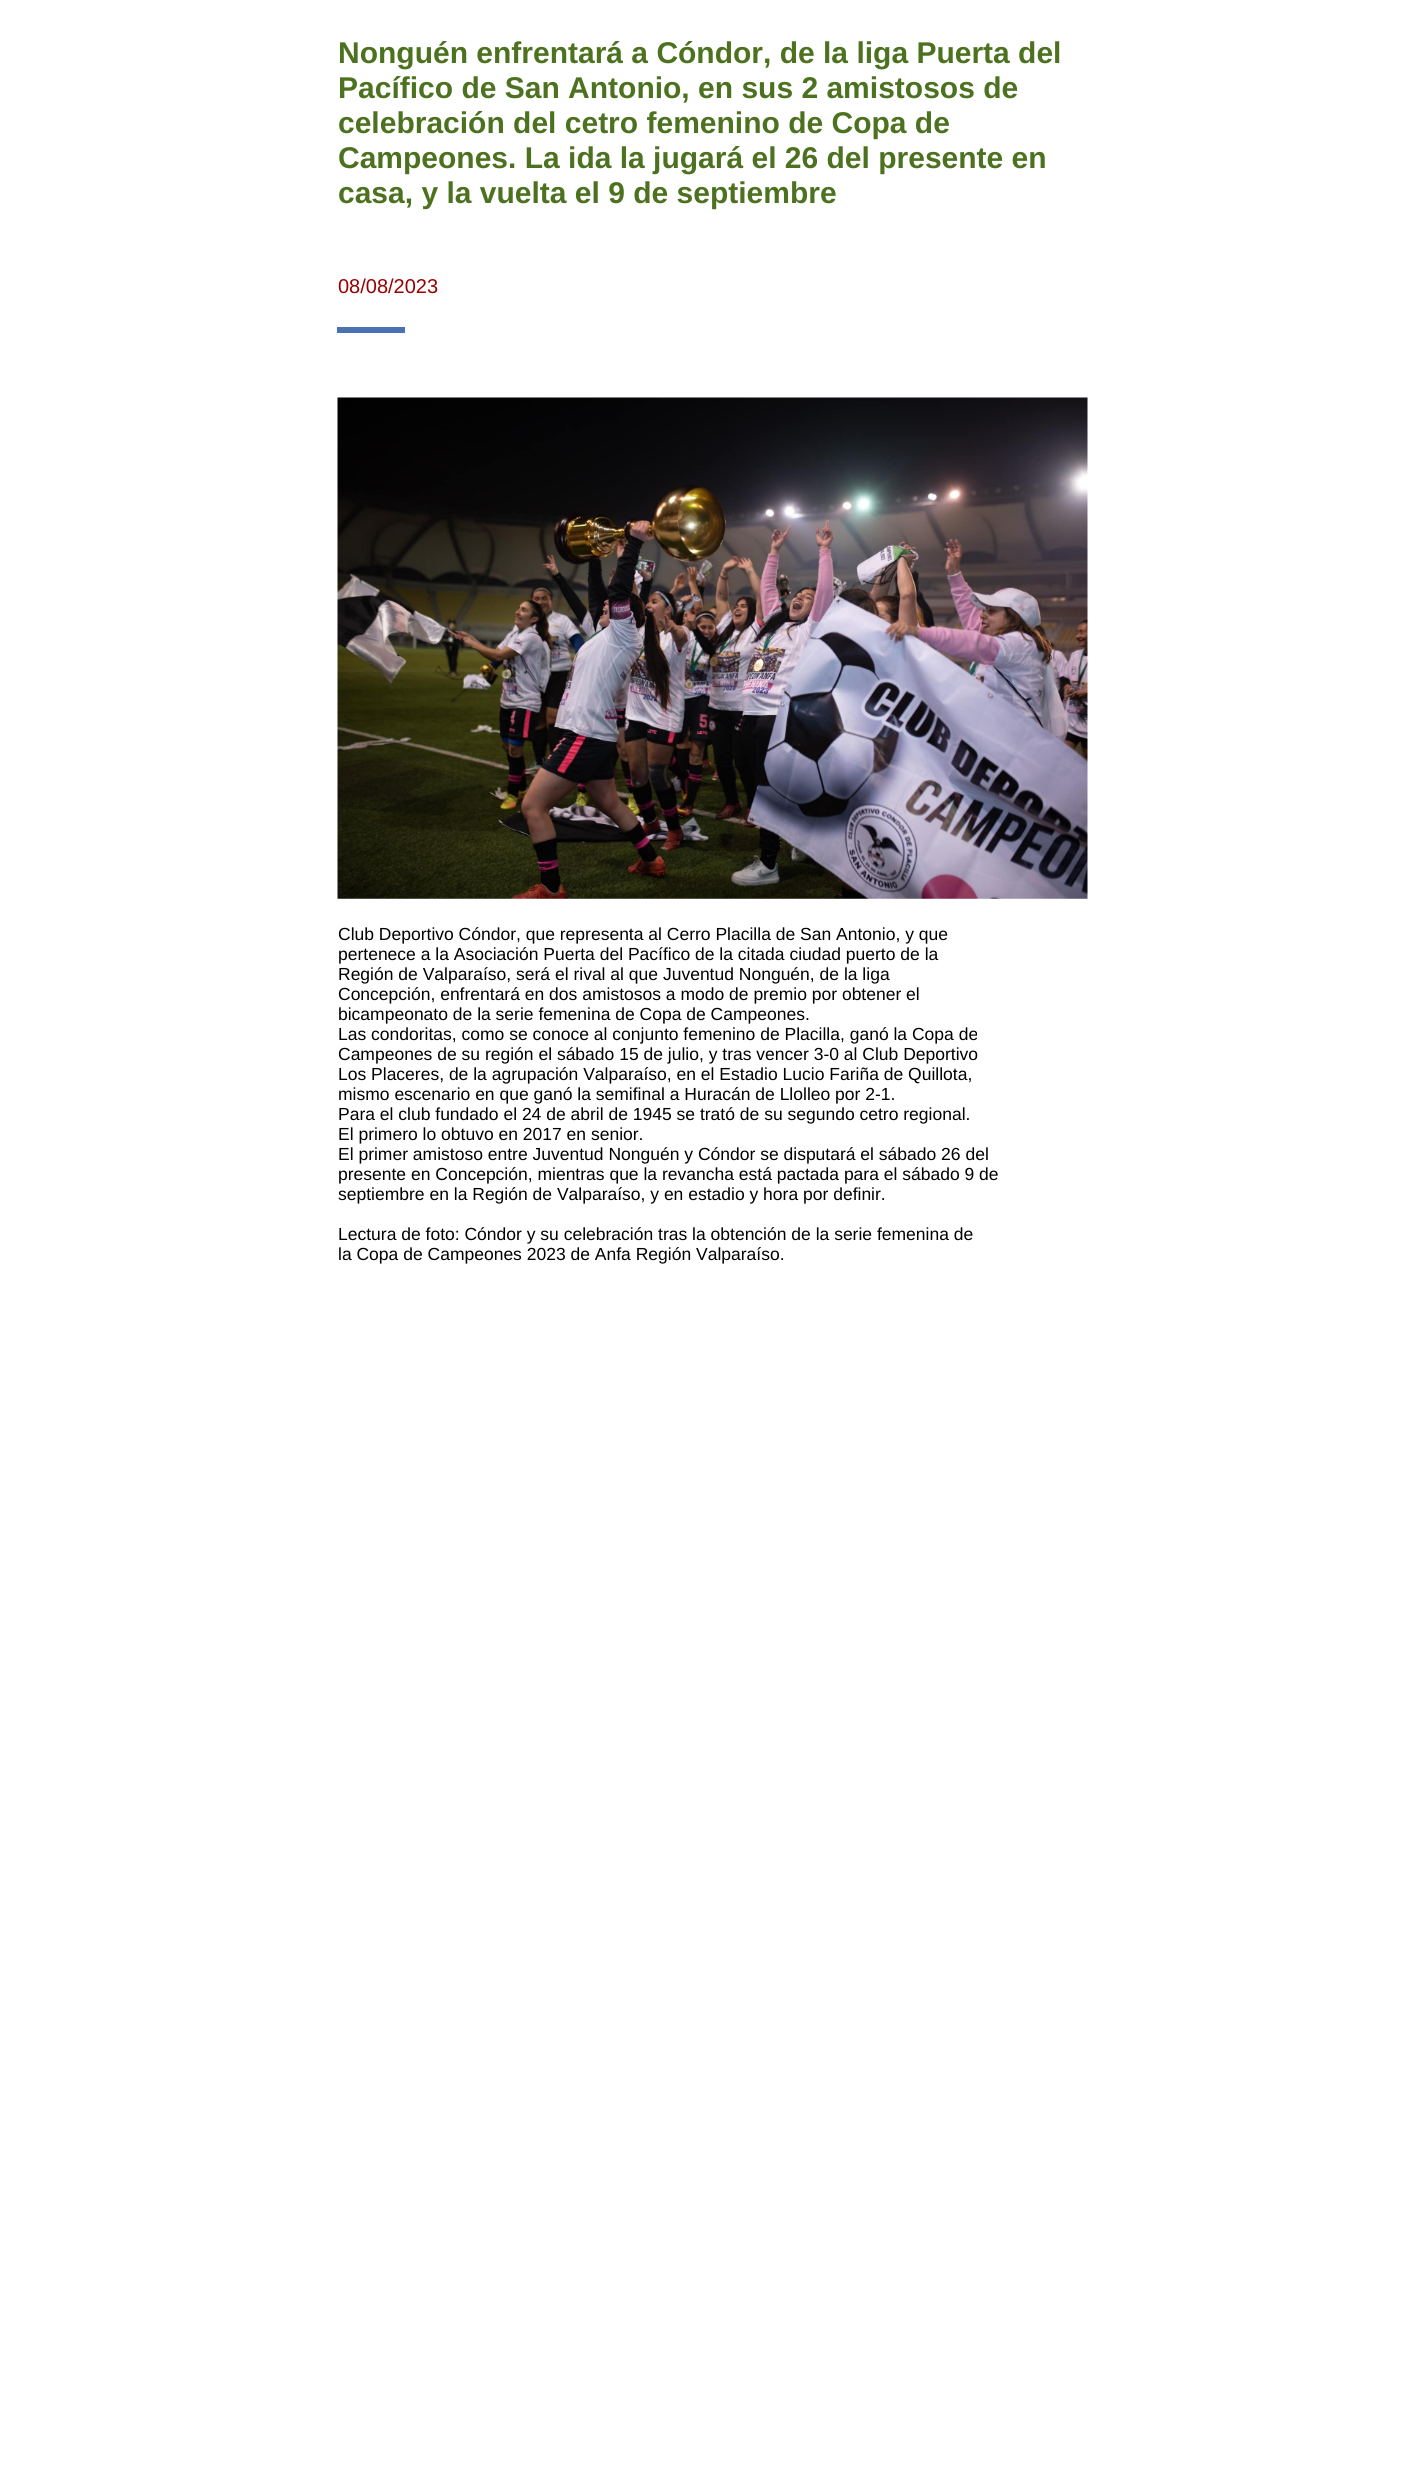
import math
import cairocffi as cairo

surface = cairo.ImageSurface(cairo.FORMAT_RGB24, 1422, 2479)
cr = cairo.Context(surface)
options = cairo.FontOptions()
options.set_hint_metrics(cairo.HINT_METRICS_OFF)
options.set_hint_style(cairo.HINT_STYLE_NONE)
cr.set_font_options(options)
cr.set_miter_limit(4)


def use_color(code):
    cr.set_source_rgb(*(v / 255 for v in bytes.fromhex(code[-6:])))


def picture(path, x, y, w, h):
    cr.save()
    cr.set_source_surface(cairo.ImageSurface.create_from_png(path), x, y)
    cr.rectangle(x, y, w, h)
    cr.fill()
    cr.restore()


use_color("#ffffff")
cr.paint()
cr.select_font_face("Liberation Sans", cairo.FONT_SLANT_NORMAL, cairo.FONT_WEIGHT_BOLD)
cr.set_font_size(30)
use_color("#4c721f")
cr.move_to(338, 63)
cr.show_text("Nonguén enfrentará a Cóndor, de la liga Puerta del")
cr.move_to(338, 98)
cr.show_text("Pacífico de San Antonio, en sus 2 amistosos de")
cr.move_to(338, 133)
cr.show_text("celebración del cetro femenino de Copa de")
cr.move_to(338, 168)
cr.show_text("Campeones. La ida la jugará el 26 del presente en")
cr.move_to(338, 203)
cr.show_text("casa, y la vuelta el 9 de septiembre")
cr.select_font_face("Liberation Sans")
cr.set_font_size(20)
use_color("#990000")
cr.move_to(338, 293)
cr.show_text("08/08/2023")
use_color("#4a71b1")
cr.rectangle(337, 327, 68, 6)
cr.fill()
picture("img1.png", 337, 397, 751, 502)
cr.set_font_size(17.5)
use_color("#000000")
cr.move_to(338, 940)
cr.show_text("Club Deportivo Cóndor, que representa al Cerro Placilla de San Antonio, y que")
cr.move_to(338, 960)
cr.show_text("pertenece a la Asociación Puerta del Pacífico de la citada ciudad puerto de la")
cr.move_to(338, 980)
cr.show_text("Región de Valparaíso, será el rival al que Juventud Nonguén, de la liga")
cr.move_to(338, 1000)
cr.show_text("Concepción, enfrentará en dos amistosos a modo de premio por obtener el")
cr.move_to(338, 1020)
cr.show_text("bicampeonato de la serie femenina de Copa de Campeones.")
cr.move_to(338, 1040)
cr.show_text("Las condoritas, como se conoce al conjunto femenino de Placilla, ganó la Copa de")
cr.move_to(338, 1060)
cr.show_text("Campeones de su región el sábado 15 de julio, y tras vencer 3-0 al Club Deportivo")
cr.move_to(338, 1080)
cr.show_text("Los Placeres, de la agrupación Valparaíso, en el Estadio Lucio Fariña de Quillota,")
cr.move_to(338, 1100)
cr.show_text("mismo escenario en que ganó la semifinal a Huracán de Llolleo por 2-1.")
cr.move_to(338, 1120)
cr.show_text("Para el club fundado el 24 de abril de 1945 se trató de su segundo cetro regional.")
cr.move_to(338, 1140)
cr.show_text("El primero lo obtuvo en 2017 en senior.")
cr.move_to(338, 1160)
cr.show_text("El primer amistoso entre Juventud Nonguén y Cóndor se disputará el sábado 26 del")
cr.move_to(338, 1180)
cr.show_text("presente en Concepción, mientras que la revancha está pactada para el sábado 9 de")
cr.move_to(338, 1200)
cr.show_text("septiembre en la Región de Valparaíso, y en estadio y hora por definir.")
cr.move_to(338, 1240)
cr.show_text("Lectura de foto: Cóndor y su celebración tras la obtención de la serie femenina de")
cr.move_to(338, 1260)
cr.show_text("la Copa de Campeones 2023 de Anfa Región Valparaíso.")
surface.write_to_png("result.png")
